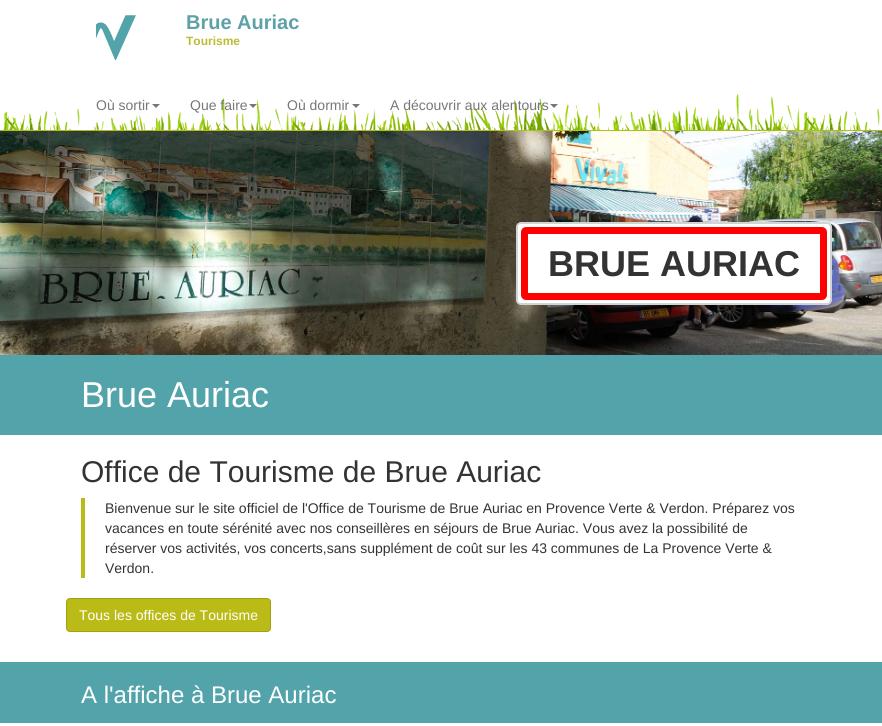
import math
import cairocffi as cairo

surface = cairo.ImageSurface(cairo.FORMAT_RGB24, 882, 726)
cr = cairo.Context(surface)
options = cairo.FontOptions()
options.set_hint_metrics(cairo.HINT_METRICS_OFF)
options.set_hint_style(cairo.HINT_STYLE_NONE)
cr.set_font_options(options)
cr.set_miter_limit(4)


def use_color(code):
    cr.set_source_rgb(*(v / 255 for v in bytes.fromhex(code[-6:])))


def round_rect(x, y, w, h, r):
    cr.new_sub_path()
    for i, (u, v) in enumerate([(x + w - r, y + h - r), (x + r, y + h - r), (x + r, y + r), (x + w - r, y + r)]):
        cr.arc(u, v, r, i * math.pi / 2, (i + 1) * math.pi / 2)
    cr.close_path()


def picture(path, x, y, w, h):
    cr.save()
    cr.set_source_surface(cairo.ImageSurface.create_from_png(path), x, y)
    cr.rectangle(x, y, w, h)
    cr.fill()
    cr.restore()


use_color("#ffffff")
cr.paint()
picture("img1.png", 3, 94, 877, 36)
use_color("#bbbb18")
cr.rectangle(0, 130, 882, 1)
cr.fill()
picture("img2.png", 96, 15, 40, 45)
cr.select_font_face("Liberation Sans", cairo.FONT_SLANT_NORMAL, cairo.FONT_WEIGHT_BOLD)
cr.set_font_size(20)
use_color("#5ea1a7")
cr.move_to(186, 29)
cr.show_text("Brue Auriac")
cr.set_font_size(12)
use_color("#bbbc33")
cr.move_to(186, 45)
cr.show_text("Tourisme")
cr.select_font_face("Liberation Sans")
cr.set_font_size(14)
use_color("#777777")
cr.move_to(96, 110)
cr.show_text("Où sortir")
cr.new_path()
cr.move_to(152, 104)
cr.line_to(160, 104)
cr.line_to(156, 108)
cr.close_path()
cr.fill()
cr.move_to(190, 110)
cr.show_text("Que faire")
cr.new_path()
cr.move_to(249, 104)
cr.line_to(257, 104)
cr.line_to(253, 108)
cr.close_path()
cr.fill()
cr.move_to(287, 110)
cr.show_text("Où dormir")
cr.new_path()
cr.move_to(352, 104)
cr.line_to(360, 104)
cr.line_to(356, 108)
cr.close_path()
cr.fill()
cr.move_to(390, 110)
cr.show_text("A découvrir aux alentours")
cr.new_path()
cr.move_to(550, 104)
cr.line_to(558, 104)
cr.line_to(554, 108)
cr.close_path()
cr.fill()
picture("img3.png", 0, 131, 882, 224)
use_color("#ffffff")
round_rect(517, 223, 314, 81, 4)
cr.fill_preserve()
use_color("#d3d3d3")
cr.stroke()
round_rect(524.5, 230.5, 299, 66, 1.5)
use_color("#fe0000")
cr.set_line_width(7)
cr.stroke()
cr.select_font_face("Liberation Sans", cairo.FONT_SLANT_NORMAL, cairo.FONT_WEIGHT_BOLD)
cr.set_font_size(36)
use_color("#333333")
cr.move_to(548, 276)
cr.show_text("BRUE AURIAC")
use_color("#52a3aa")
cr.rectangle(0, 355, 882, 80)
cr.fill()
cr.select_font_face("Liberation Sans")
use_color("#ffffff")
cr.move_to(81, 407)
cr.show_text("Brue Auriac")
cr.set_font_size(30)
use_color("#333333")
cr.move_to(81, 482)
cr.show_text("Office de Tourisme de Brue Auriac")
use_color("#bbbb18")
cr.rectangle(81, 498, 4, 80)
cr.fill()
cr.set_font_size(14)
use_color("#333333")
cr.move_to(105, 513)
cr.show_text("Bienvenue sur le site officiel de l'Office de Tourisme de Brue Auriac en Provence Verte & Verdon. Préparez vos")
cr.move_to(105, 533)
cr.show_text("vacances en toute sérénité avec nos conseillères en séjours de Brue Auriac. Vous avez la possibilité de")
cr.move_to(105, 553)
cr.show_text("réserver vos activités, vos concerts,sans supplément de coût sur les 43 communes de La Provence Verte &")
cr.move_to(105, 573)
cr.show_text("Verdon.")
use_color("#bbbb18")
round_rect(66.5, 598.5, 204, 33, 3.5)
cr.fill_preserve()
use_color("#a2a210")
cr.set_line_width(1)
cr.stroke()
use_color("#ffffff")
cr.move_to(79, 620)
cr.show_text("Tous les offices de Tourisme")
use_color("#52a3aa")
cr.rectangle(0, 662, 882, 61)
cr.fill()
cr.set_font_size(24)
use_color("#ffffff")
cr.move_to(81, 703)
cr.show_text("A l'affiche à Brue Auriac")
surface.write_to_png("result.png")
